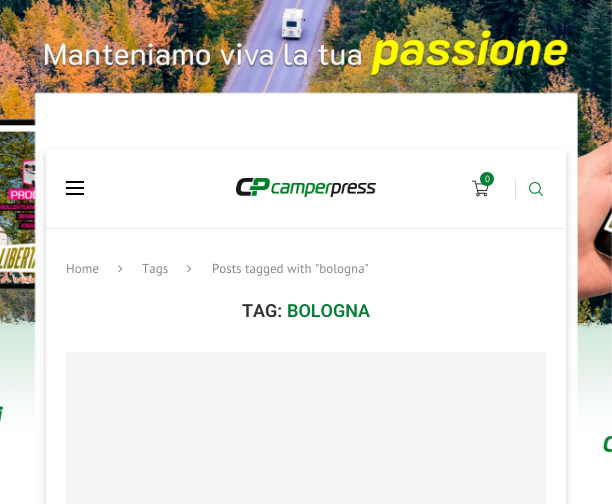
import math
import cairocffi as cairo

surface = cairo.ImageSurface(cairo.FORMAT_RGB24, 612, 504)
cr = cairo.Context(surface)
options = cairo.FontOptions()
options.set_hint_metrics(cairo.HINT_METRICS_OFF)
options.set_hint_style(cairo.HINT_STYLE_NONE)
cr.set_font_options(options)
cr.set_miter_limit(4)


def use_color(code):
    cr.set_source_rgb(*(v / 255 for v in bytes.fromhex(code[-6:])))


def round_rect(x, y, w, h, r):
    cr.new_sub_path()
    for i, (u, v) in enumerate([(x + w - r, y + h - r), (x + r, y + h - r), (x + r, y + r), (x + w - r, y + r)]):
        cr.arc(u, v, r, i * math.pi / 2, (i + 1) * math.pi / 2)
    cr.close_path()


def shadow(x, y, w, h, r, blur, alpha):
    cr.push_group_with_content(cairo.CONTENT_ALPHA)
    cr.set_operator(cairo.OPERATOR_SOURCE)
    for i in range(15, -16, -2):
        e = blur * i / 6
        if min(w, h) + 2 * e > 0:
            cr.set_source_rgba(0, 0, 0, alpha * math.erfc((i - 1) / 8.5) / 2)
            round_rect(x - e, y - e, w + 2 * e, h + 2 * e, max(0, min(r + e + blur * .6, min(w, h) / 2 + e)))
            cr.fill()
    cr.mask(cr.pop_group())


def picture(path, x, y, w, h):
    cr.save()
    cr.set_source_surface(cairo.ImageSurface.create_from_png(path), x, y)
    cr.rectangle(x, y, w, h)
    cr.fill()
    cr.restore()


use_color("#ffffff")
cr.paint()
picture("img1.png", 0, 0, 612, 504)
cr.save()
cr.set_fill_rule(cairo.FILL_RULE_EVEN_ODD)
cr.new_path()
cr.move_to(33, 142)
cr.line_to(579, 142)
cr.line_to(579, 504)
cr.line_to(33, 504)
cr.close_path()
cr.move_to(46, 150)
cr.line_to(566, 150)
cr.line_to(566, 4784)
cr.line_to(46, 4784)
cr.close_path()
cr.clip()
use_color("#000000")
shadow(46, 155, 520, 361, 0, 4, 0.2)
cr.restore()
use_color("#ececec")
cr.rectangle(46, 228, 520, 1)
cr.fill()
use_color("#000000")
cr.rectangle(66, 181, 18, 2)
cr.fill()
cr.rectangle(66, 187, 18, 2)
cr.fill()
cr.rectangle(66, 193, 18, 2)
cr.fill()
picture("img2.png", 236, 178, 140, 19)
picture("img3.png", 472, 180, 17, 17)
use_color("#077e35")
cr.arc(487, 179, 7, 0, 2 * math.pi)
cr.fill()
cr.select_font_face("PT Sans")
cr.set_font_size(9)
use_color("#ffffff")
cr.move_to(485, 182)
cr.show_text("0")
use_color("#dedede")
cr.rectangle(515, 179, 1, 20)
cr.fill()
picture("img4.png", 529, 182, 14, 14)
cr.set_font_size(13)
use_color("#888888")
cr.move_to(66, 273)
cr.show_text("Home")
picture("img5.png", 118, 265, 5, 8)
cr.move_to(142, 273)
cr.show_text("Tags")
picture("img5.png", 187, 265, 5, 8)
cr.move_to(212, 273)
cr.show_text("Posts tagged with \"bologna\"")
cr.select_font_face("Roboto SemiBold")
cr.set_font_size(18)
use_color("#313131")
cr.move_to(242, 317)
cr.show_text("TAG:")
use_color("#077e35")
cr.move_to(287, 317)
cr.show_text("BOLOGNA")
use_color("#f5f5f5")
cr.rectangle(66, 352, 480, 152)
cr.fill()
surface.write_to_png("result.png")
